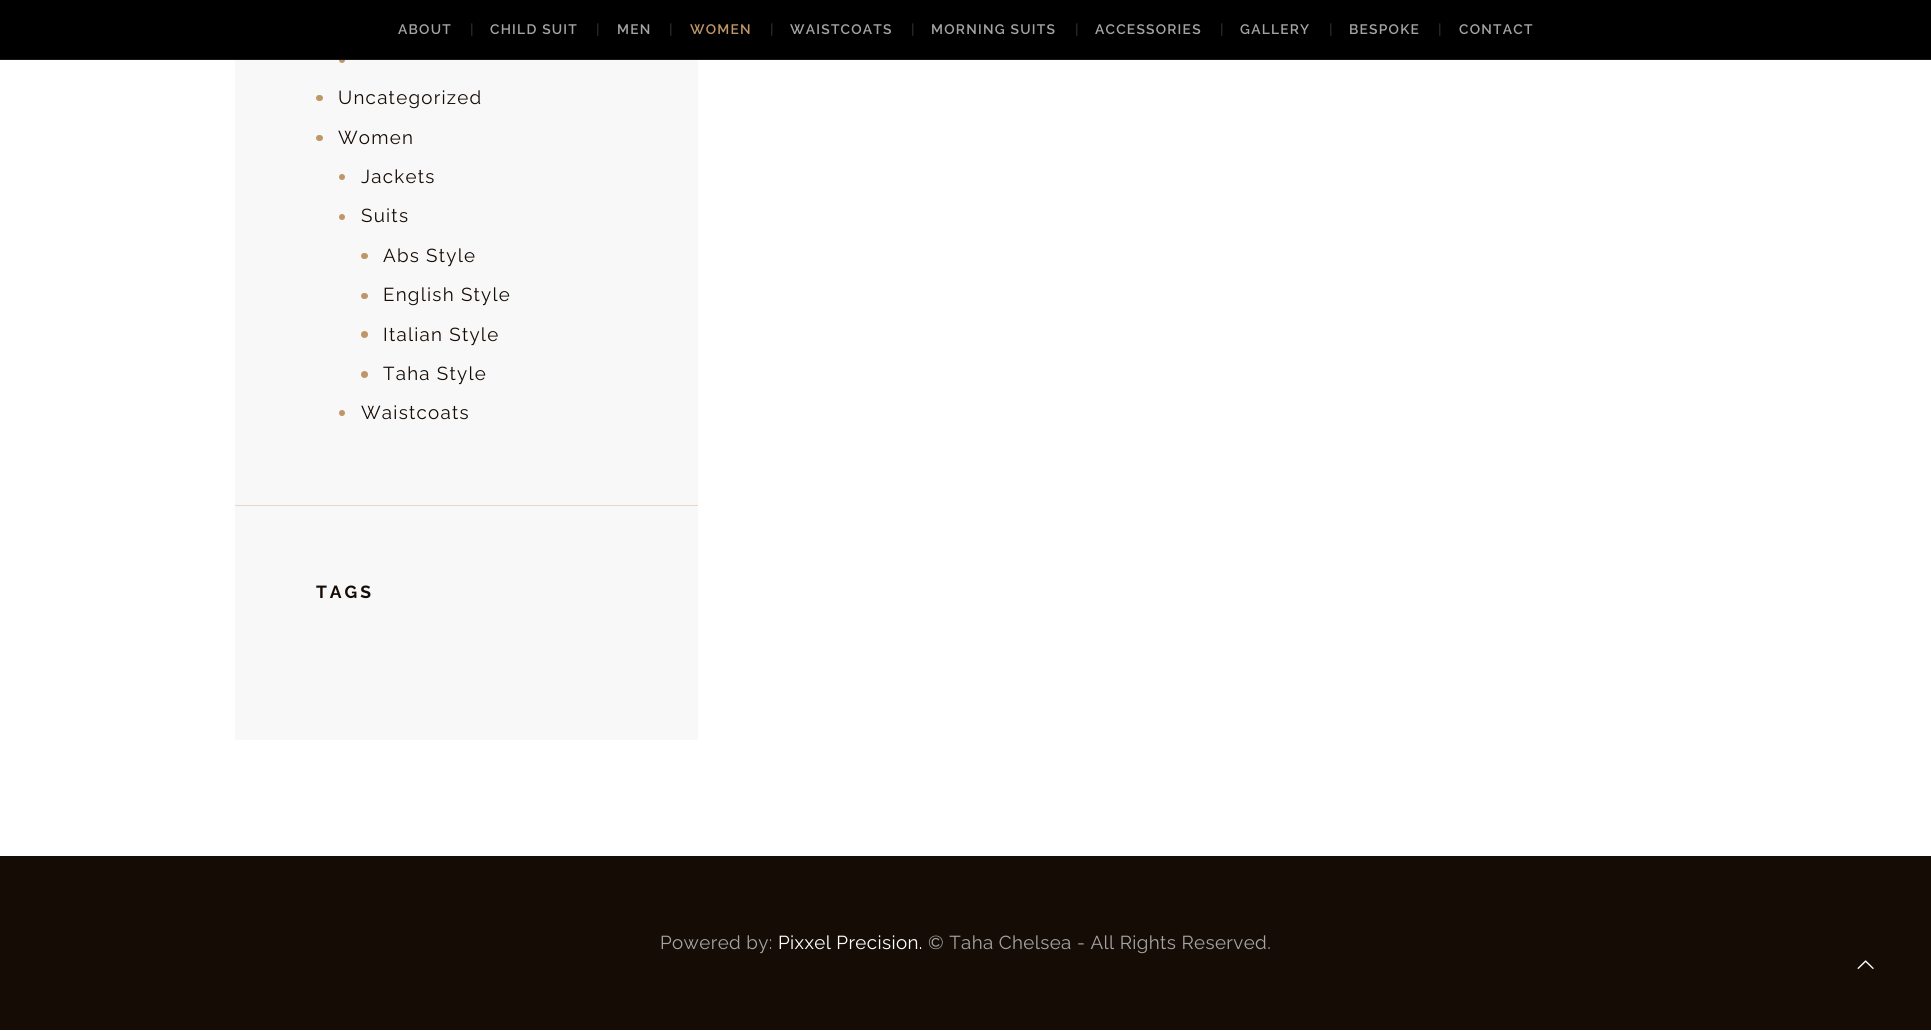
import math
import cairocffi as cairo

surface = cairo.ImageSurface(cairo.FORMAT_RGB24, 1931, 1031)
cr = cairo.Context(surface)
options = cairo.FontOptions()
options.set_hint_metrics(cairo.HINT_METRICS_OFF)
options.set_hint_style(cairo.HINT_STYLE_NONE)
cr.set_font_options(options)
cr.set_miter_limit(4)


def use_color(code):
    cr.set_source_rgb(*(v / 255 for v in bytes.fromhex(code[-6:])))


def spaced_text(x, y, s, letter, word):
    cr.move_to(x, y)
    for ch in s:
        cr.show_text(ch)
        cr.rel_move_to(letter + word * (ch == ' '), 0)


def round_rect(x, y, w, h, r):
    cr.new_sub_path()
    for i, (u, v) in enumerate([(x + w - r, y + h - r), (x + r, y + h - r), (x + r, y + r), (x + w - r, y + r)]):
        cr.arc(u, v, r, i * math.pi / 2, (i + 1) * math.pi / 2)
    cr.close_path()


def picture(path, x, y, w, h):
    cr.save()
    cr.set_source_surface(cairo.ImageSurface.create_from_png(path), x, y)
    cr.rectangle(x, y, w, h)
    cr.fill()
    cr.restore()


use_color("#ffffff")
cr.paint()
use_color("#f9f8f8")
cr.rectangle(235, 60, 463, 680)
cr.fill()
use_color("#be9667")
round_rect(339, 56, 6, 7, 3)
cr.fill()
use_color("#000000")
cr.rectangle(0, 0, 1931, 59)
cr.fill()
use_color("#171717")
cr.rectangle(0, 59, 1931, 1)
cr.fill()
cr.select_font_face("Raleway SemiBold")
cr.set_font_size(13.75)
use_color("#a4a4a4")
spaced_text(398, 34, "ABOUT", 1.25, 0)
use_color("#292929")
spaced_text(470, 34, "|", 4, 0)
use_color("#a4a4a4")
spaced_text(490, 34, "CHILD SUIT", 1.25, 0)
use_color("#292929")
spaced_text(596, 34, "|", 4, 0)
use_color("#a4a4a4")
spaced_text(617, 34, "MEN", 1.25, 0)
use_color("#292929")
spaced_text(669, 34, "|", 4, 0)
use_color("#be9667")
spaced_text(690, 34, "WOMEN", 1.25, 0)
use_color("#292929")
spaced_text(770, 34, "|", 4, 0)
use_color("#a4a4a4")
spaced_text(790, 34, "WAISTCOATS", 1.25, 0)
use_color("#292929")
spaced_text(911, 34, "|", 4, 0)
use_color("#a4a4a4")
spaced_text(931, 34, "MORNING SUITS", 1.25, 0)
use_color("#292929")
spaced_text(1075, 34, "|", 4, 0)
use_color("#a4a4a4")
spaced_text(1095, 34, "ACCESSORIES", 1.25, 0)
use_color("#292929")
spaced_text(1220, 34, "|", 4, 0)
use_color("#a4a4a4")
spaced_text(1240, 34, "GALLERY", 1.25, 0)
use_color("#292929")
spaced_text(1329, 34, "|", 4, 0)
use_color("#a4a4a4")
spaced_text(1349, 34, "BESPOKE", 1.25, 0)
use_color("#292929")
spaced_text(1438, 34, "|", 4, 0)
use_color("#a4a4a4")
spaced_text(1459, 34, "CONTACT", 1.25, 0)
use_color("#be9667")
round_rect(316, 95, 7, 6, 3)
cr.fill()
cr.select_font_face("Raleway")
cr.set_font_size(18.75)
use_color("#160c06")
spaced_text(338, 104, "Uncategorized", 1.25, 0)
use_color("#be9667")
round_rect(316, 135, 7, 6, 3)
cr.fill()
use_color("#160c06")
spaced_text(338, 144, "Women", 1.25, 0)
use_color("#be9667")
cr.new_path()
cr.arc(342, 177, 3, 0, 2 * math.pi)
cr.fill()
use_color("#160c06")
spaced_text(361, 183, "Jackets", 1.25, 0)
use_color("#be9667")
cr.new_path()
cr.arc(342, 217, 3, 0, 2 * math.pi)
cr.fill()
use_color("#160c06")
spaced_text(361, 222, "Suits", 1.25, 0)
use_color("#be9667")
round_rect(361, 253, 7, 6, 3)
cr.fill()
use_color("#160c06")
spaced_text(383, 262, "Abs Style", 1.25, 0)
use_color("#be9667")
round_rect(361, 293, 7, 6, 3)
cr.fill()
use_color("#160c06")
spaced_text(383, 301, "English Style", 1.25, 0)
use_color("#be9667")
cr.new_path()
cr.arc(364.5, 334.5, 3.5, 0, 2 * math.pi)
cr.fill()
use_color("#160c06")
spaced_text(383, 341, "Italian Style", 1.25, 0)
use_color("#be9667")
cr.new_path()
cr.arc(364.5, 374.5, 3.5, 0, 2 * math.pi)
cr.fill()
use_color("#160c06")
spaced_text(383, 380, "Taha Style", 1.25, 0)
use_color("#be9667")
cr.new_path()
cr.arc(342, 413, 3, 0, 2 * math.pi)
cr.fill()
use_color("#160c06")
spaced_text(361, 419, "Waistcoats", 1.25, 0)
use_color("#e8d7c2")
cr.rectangle(235, 505, 463, 1)
cr.fill()
cr.select_font_face("Raleway", cairo.FONT_SLANT_NORMAL, cairo.FONT_WEIGHT_BOLD)
cr.set_font_size(17.5)
use_color("#160c06")
spaced_text(316, 598, "TAGS", 3, 0)
cr.rectangle(0, 856, 1931, 174)
cr.fill()
cr.select_font_face("Raleway")
cr.set_font_size(18.75)
use_color("#a4a4a4")
spaced_text(660, 949, "Powered by:", 0.4, 0)
use_color("#ffffff")
spaced_text(778, 949, "Pixxel Precision.", 0.4, 0)
use_color("#a4a4a4")
spaced_text(928, 949, "© Taha Chelsea - All Rights Reserved.", 0.4, 0)
picture("img1.png", 1857, 960, 17, 9)
surface.write_to_png("result.png")
